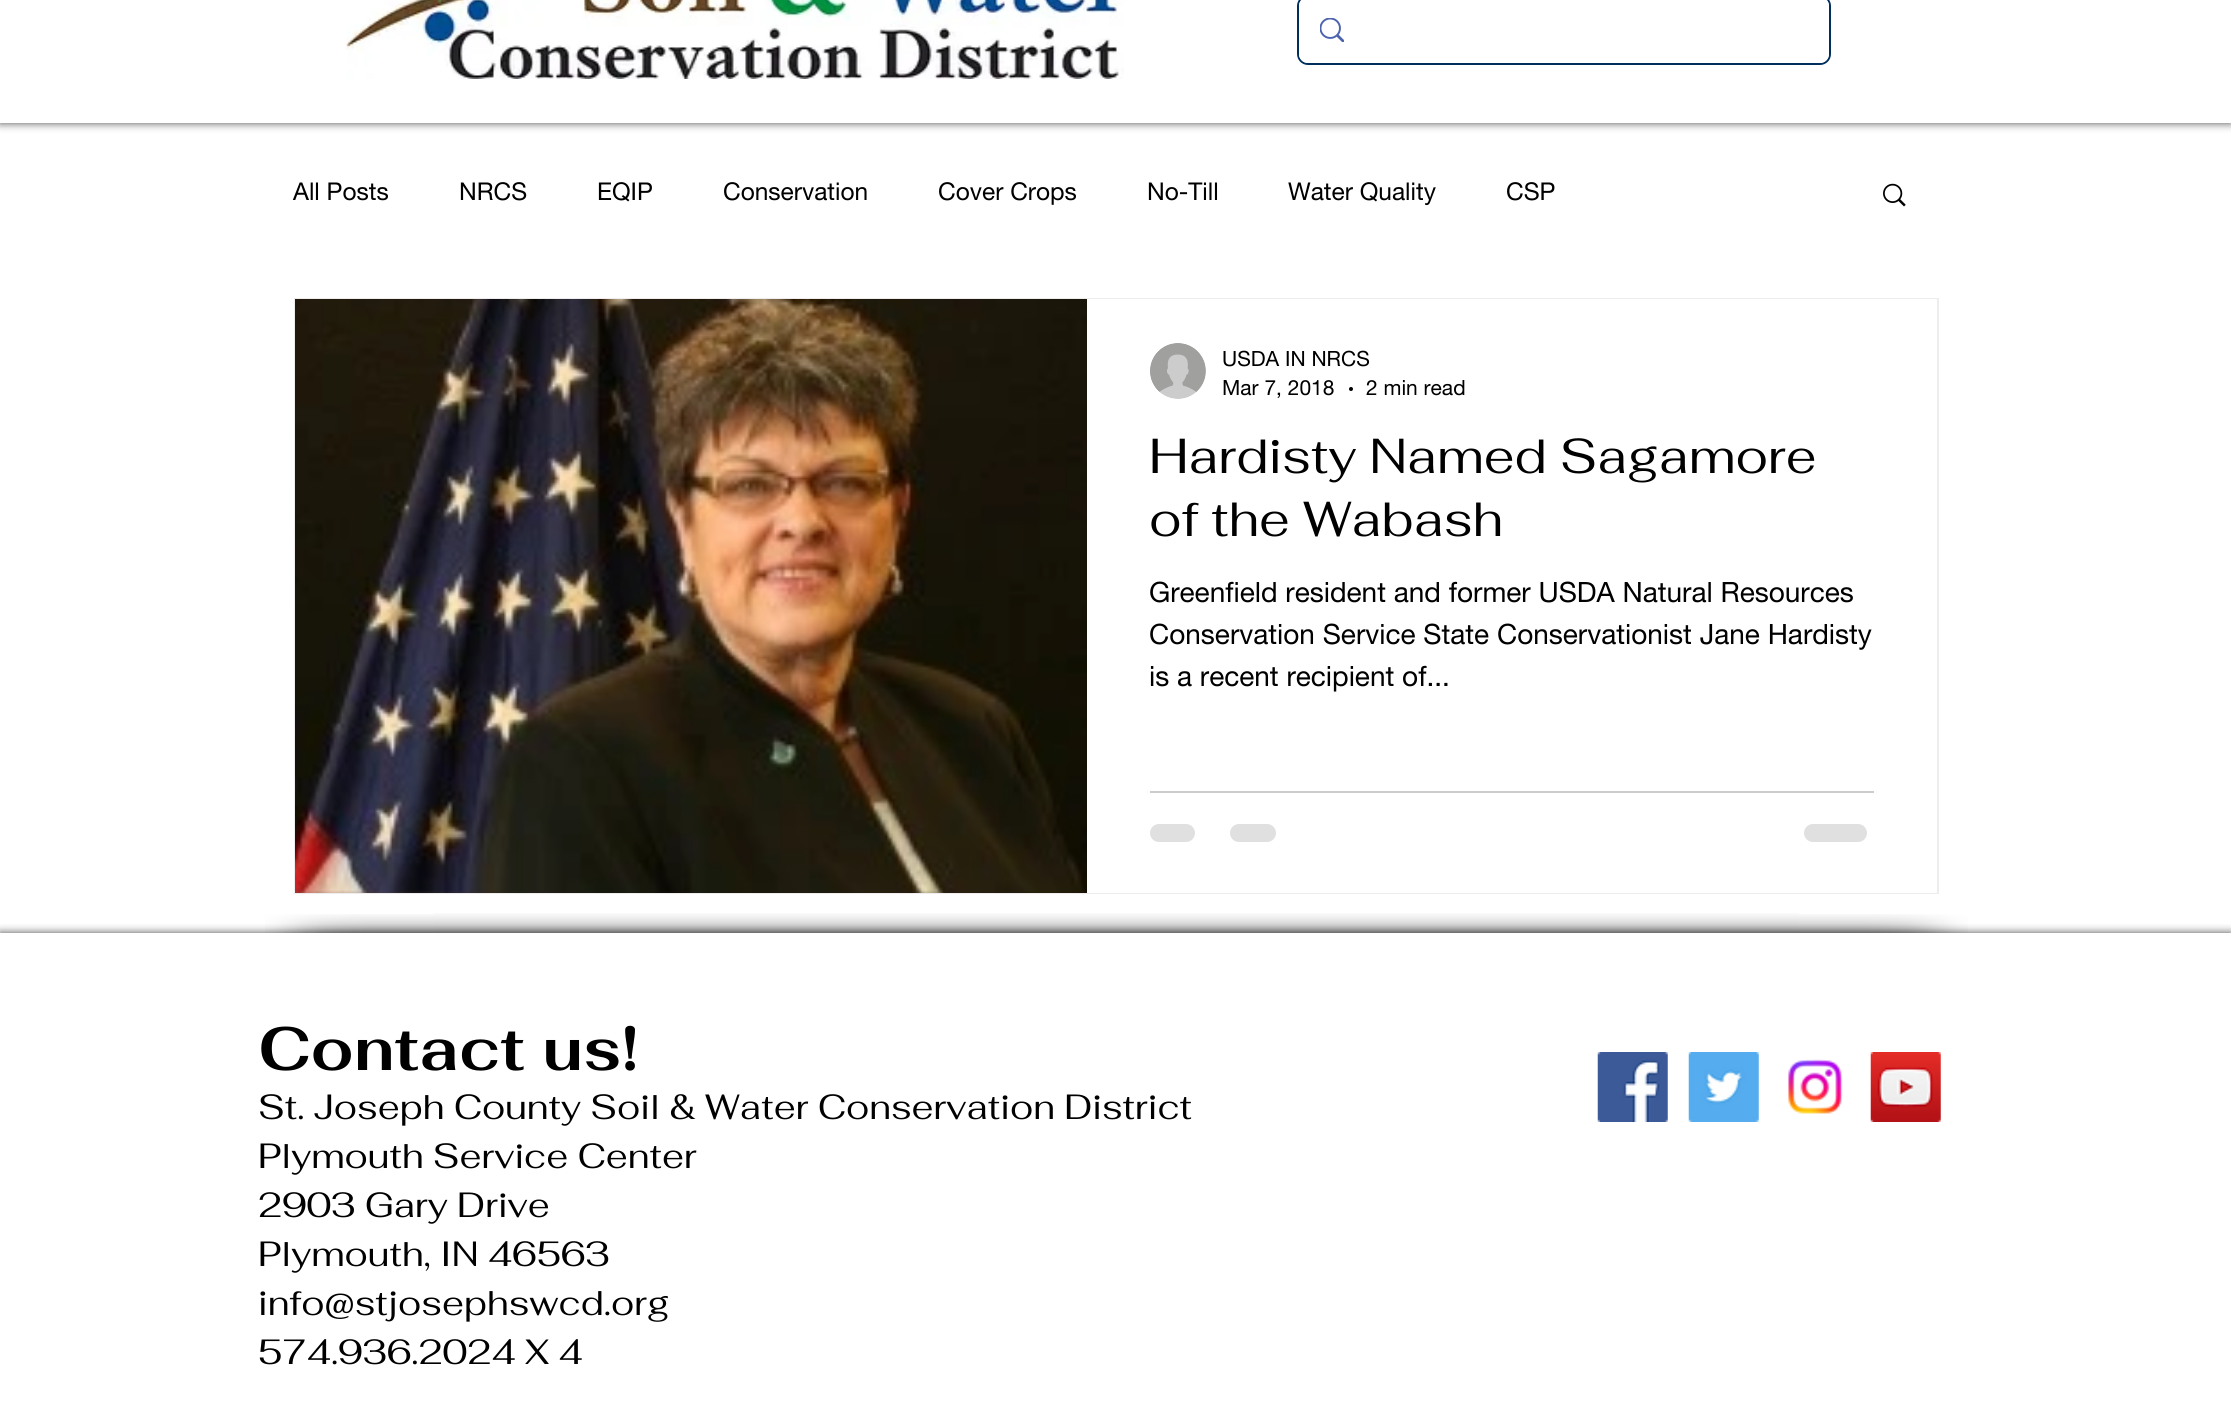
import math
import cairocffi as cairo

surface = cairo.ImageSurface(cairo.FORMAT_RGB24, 2231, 1403)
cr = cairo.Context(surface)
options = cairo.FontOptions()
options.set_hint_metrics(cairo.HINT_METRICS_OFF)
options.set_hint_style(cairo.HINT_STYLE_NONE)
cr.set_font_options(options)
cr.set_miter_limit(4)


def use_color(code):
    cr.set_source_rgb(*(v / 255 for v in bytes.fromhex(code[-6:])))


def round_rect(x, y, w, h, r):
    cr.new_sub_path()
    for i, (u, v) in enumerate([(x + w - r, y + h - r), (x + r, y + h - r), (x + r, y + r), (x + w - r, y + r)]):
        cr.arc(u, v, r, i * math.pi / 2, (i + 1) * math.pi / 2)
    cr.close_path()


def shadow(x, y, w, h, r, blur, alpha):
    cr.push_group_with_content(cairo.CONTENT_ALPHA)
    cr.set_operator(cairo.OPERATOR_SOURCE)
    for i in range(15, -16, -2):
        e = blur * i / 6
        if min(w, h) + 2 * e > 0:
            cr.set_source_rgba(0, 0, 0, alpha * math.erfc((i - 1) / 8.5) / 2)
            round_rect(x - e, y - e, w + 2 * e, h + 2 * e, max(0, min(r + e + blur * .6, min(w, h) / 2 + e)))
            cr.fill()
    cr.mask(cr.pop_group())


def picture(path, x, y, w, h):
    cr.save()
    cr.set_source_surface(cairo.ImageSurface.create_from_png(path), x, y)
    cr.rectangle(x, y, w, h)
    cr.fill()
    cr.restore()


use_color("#ffffff")
cr.paint()
use_color("#000000")
shadow(0, -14, 2231, 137, 0, 4.5, 0.7)
use_color("#ffffff")
cr.rectangle(0, 0, 2231, 123)
cr.fill()
picture("img1.png", 346, 0, 778, 79)
round_rect(1298, -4, 532, 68, 10)
use_color("#002e5d")
cr.stroke()
use_color("#ffffff")
round_rect(1299, -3, 530, 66, 9)
cr.fill()
picture("img2.png", 1320, 18, 24, 24)
cr.select_font_face("helvetica neue")
cr.set_font_size(24.5)
use_color("#000000")
cr.move_to(293, 200)
cr.show_text("All Posts")
cr.move_to(459, 200)
cr.show_text("NRCS")
cr.move_to(597, 200)
cr.show_text("EQIP")
cr.move_to(723, 200)
cr.show_text("Conservation")
cr.move_to(938, 200)
cr.show_text("Cover Crops")
cr.move_to(1147, 200)
cr.show_text("No-Till")
cr.move_to(1288, 200)
cr.show_text("Water Quality")
cr.move_to(1506, 200)
cr.show_text("CSP")
picture("img3.png", 1883, 183, 23, 24)
cr.rectangle(295, 299, 1643, 594)
use_color("#eeecec")
cr.stroke()
picture("img5.png", 295, 890, 792, 3)
picture("img4.png", 295, 299, 792, 594)
use_color("#ffffff")
cr.rectangle(1087, 299, 850, 594)
cr.fill()
picture("img6.png", 1150, 343, 56, 56)
cr.set_font_size(21)
use_color("#000000")
cr.move_to(1222, 366)
cr.show_text("USDA IN NRCS")
cr.move_to(1222, 395)
cr.show_text("Mar 7, 2018")
cr.new_path()
cr.arc(1351, 389, 2, 0, 2 * math.pi)
cr.fill()
cr.move_to(1366, 395)
cr.show_text("2 min read")
cr.select_font_face("Fahkwang")
cr.set_font_size(49)
cr.move_to(1149, 473)
cr.show_text("Hardisty Named Sagamore")
cr.move_to(1149, 536)
cr.show_text("of the Wabash")
cr.select_font_face("helvetica neue")
cr.set_font_size(28)
cr.move_to(1149, 602)
cr.show_text("Greenfield resident and former USDA Natural Resources")
cr.move_to(1149, 644)
cr.show_text("Conservation Service State Conservationist Jane Hardisty")
cr.move_to(1149, 686)
cr.show_text("is a recent recipient of...")
use_color("#cccccc")
cr.rectangle(1150, 791, 724, 2)
cr.fill()
use_color("#e0e0e0")
round_rect(1150, 824, 45, 18, 9)
cr.fill()
round_rect(1230, 824, 46, 18, 9)
cr.fill()
round_rect(1804, 824, 63, 18, 9)
cr.fill()
cr.save()
cr.rectangle(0, 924, 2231, 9)
cr.clip()
use_color("#000000")
shadow(0, 933, 2231, 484, 0, 4.5, 0.7)
cr.restore()
picture("img7.png", 265, 914, 169, 19)
picture("img8.png", 434, 913, 1365, 20)
picture("img9.png", 1799, 914, 169, 19)
cr.select_font_face("Fahkwang", cairo.FONT_SLANT_NORMAL, cairo.FONT_WEIGHT_BOLD)
cr.set_font_size(61.25)
use_color("#000000")
cr.move_to(258, 1070)
cr.show_text("Contact us!")
cr.select_font_face("Fahkwang")
cr.set_font_size(35)
cr.move_to(258, 1119)
cr.show_text("St. Joseph County Soil & Water Conservation District")
cr.move_to(258, 1168)
cr.show_text("Plymouth Service Center")
cr.move_to(258, 1217)
cr.show_text("2903 Gary Drive")
cr.move_to(258, 1266)
cr.show_text("Plymouth, IN 46563")
cr.move_to(258, 1315)
cr.show_text("info@stjosephswcd.org")
cr.move_to(258, 1364)
cr.show_text("574.936.2024 X 4")
picture("img10.png", 1597, 1052, 71, 70)
picture("img11.png", 1688, 1052, 71, 70)
picture("img12.png", 1788, 1059, 55, 55)
picture("img13.png", 1870, 1052, 71, 70)
surface.write_to_png("result.png")
